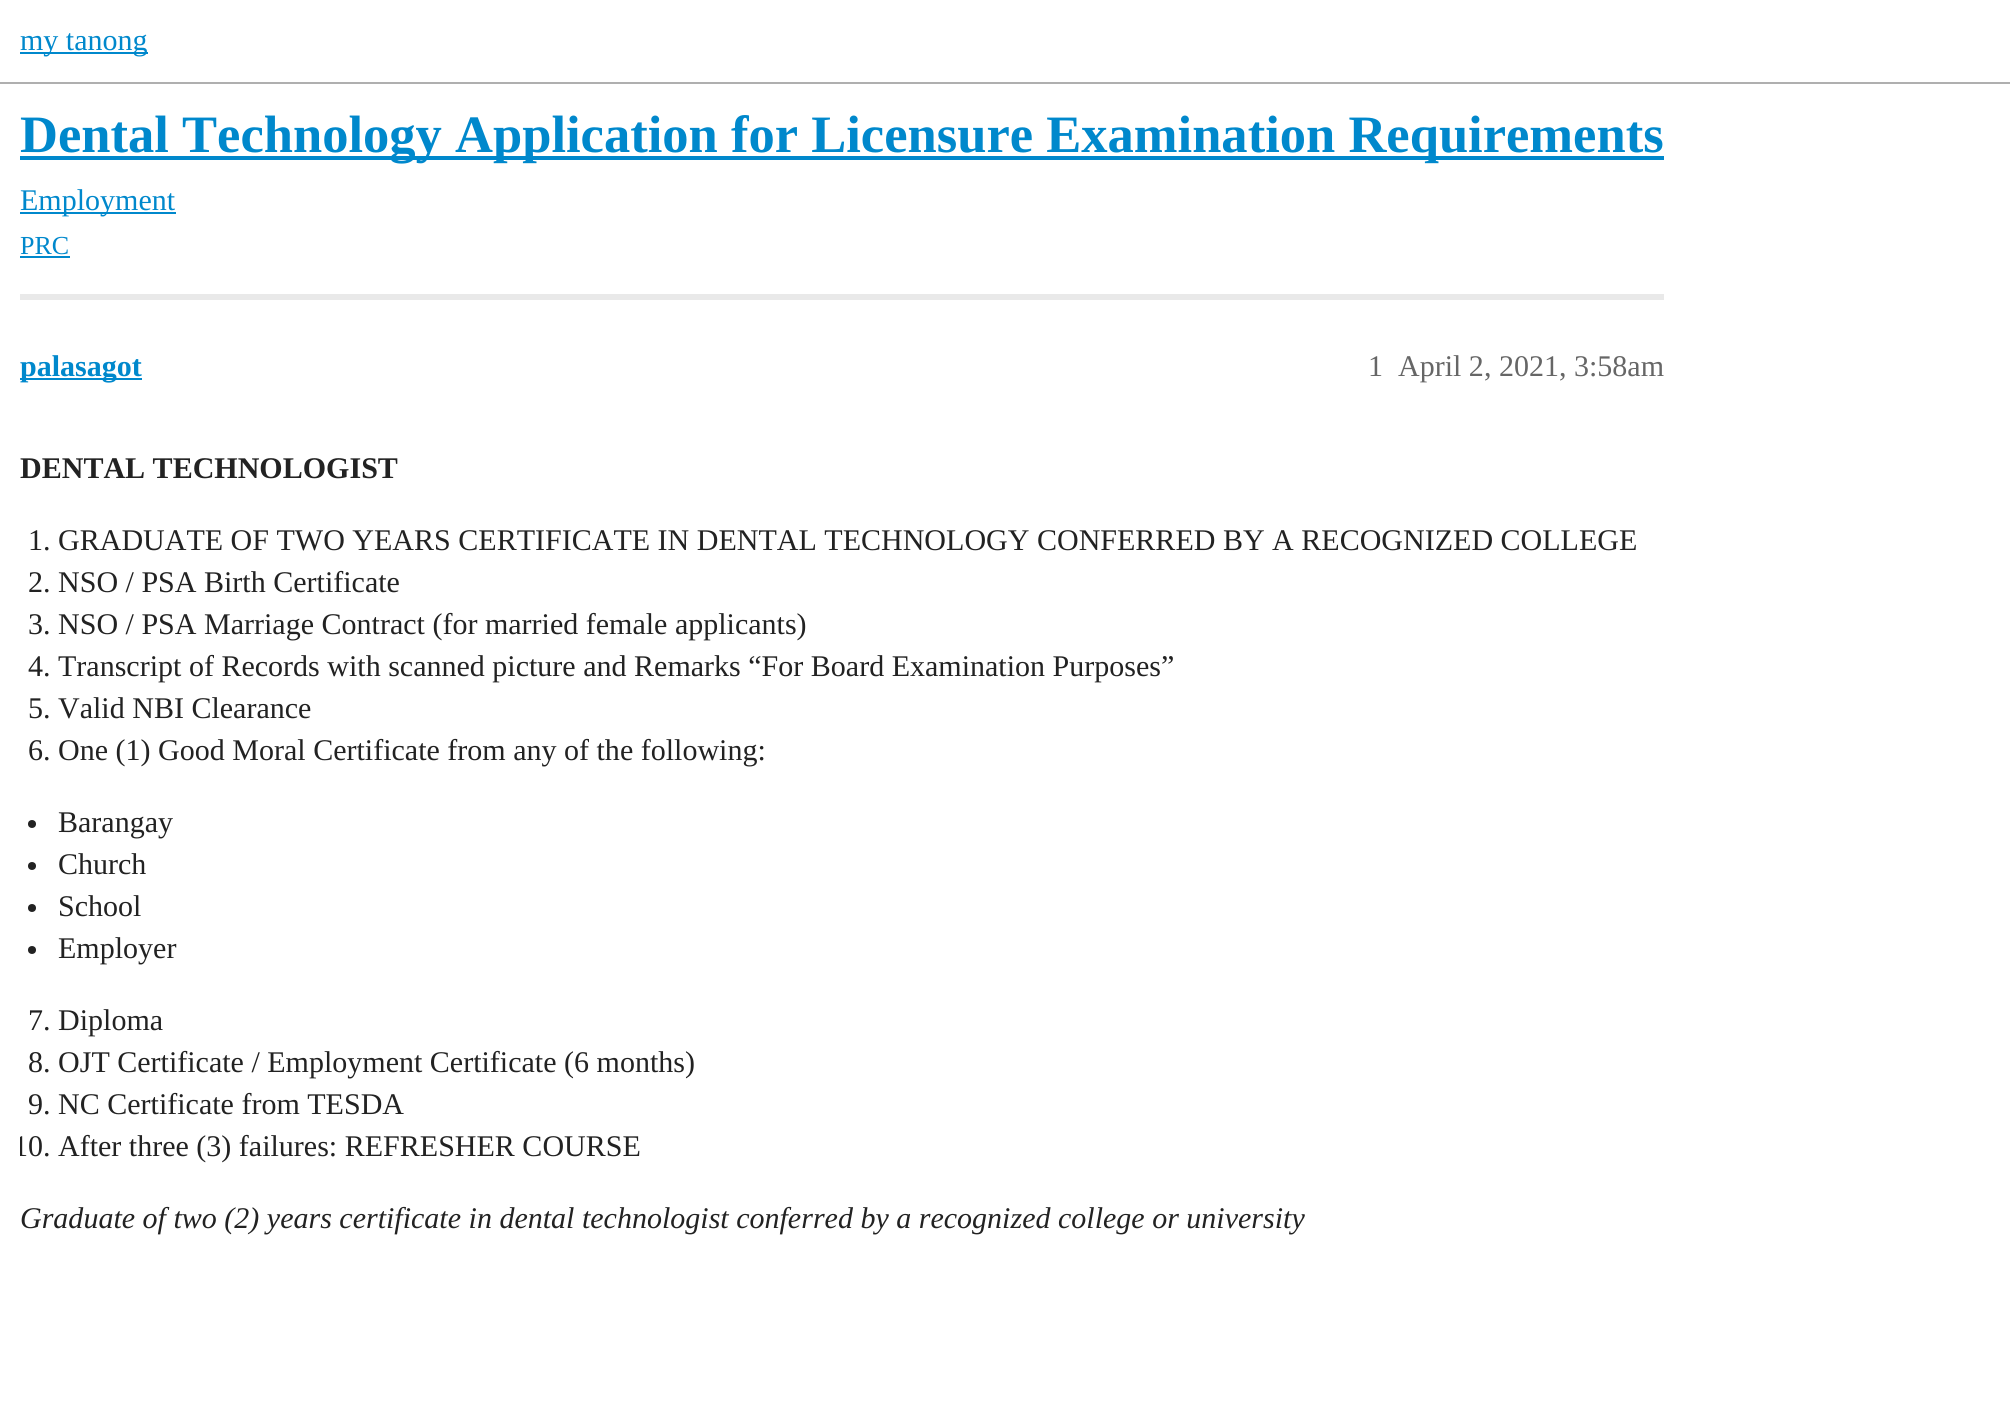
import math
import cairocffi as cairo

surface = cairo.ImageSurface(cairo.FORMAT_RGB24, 2010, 1402)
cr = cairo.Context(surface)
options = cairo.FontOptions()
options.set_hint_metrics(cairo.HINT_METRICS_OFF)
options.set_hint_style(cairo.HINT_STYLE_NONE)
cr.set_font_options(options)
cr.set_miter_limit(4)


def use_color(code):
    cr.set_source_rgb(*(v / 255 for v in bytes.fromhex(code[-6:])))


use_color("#ffffff")
cr.paint()
use_color("#afafaf")
cr.rectangle(0, 82, 2010, 2)
cr.fill()
use_color("#0088cc")
cr.rectangle(20, 52, 128, 2)
cr.fill()
cr.select_font_face("Liberation Serif")
cr.set_font_size(30.02)
cr.move_to(20, 50)
cr.show_text("my tanong")
cr.rectangle(20, 156, 1644, 4)
cr.fill()
cr.select_font_face("Liberation Serif", cairo.FONT_SLANT_NORMAL, cairo.FONT_WEIGHT_BOLD)
cr.set_font_size(52.55)
cr.move_to(20, 152)
cr.show_text("Dental Technology Application for Licensure Examination Requirements")
cr.rectangle(20, 212, 156, 2)
cr.fill()
cr.select_font_face("Liberation Serif")
cr.set_font_size(30.02)
cr.move_to(20, 210)
cr.show_text("Employment")
cr.set_font_size(26)
cr.move_to(20, 254)
cr.show_text("PRC")
cr.rectangle(20, 256, 50, 2)
cr.fill()
use_color("#e9e9e9")
cr.rectangle(20, 294, 1644, 6)
cr.fill()
use_color("#0088cc")
cr.rectangle(20, 378, 122, 2)
cr.fill()
cr.select_font_face("Liberation Serif", cairo.FONT_SLANT_NORMAL, cairo.FONT_WEIGHT_BOLD)
cr.set_font_size(30.02)
cr.move_to(20, 376)
cr.show_text("palasagot")
cr.select_font_face("Liberation Serif")
use_color("#666666")
cr.move_to(1368, 376)
cr.show_text("1")
cr.move_to(1398, 376)
cr.show_text("April 2, 2021, 3:58am")
cr.select_font_face("Liberation Serif", cairo.FONT_SLANT_NORMAL, cairo.FONT_WEIGHT_BOLD)
use_color("#222222")
cr.move_to(20, 478)
cr.show_text("DENTAL TECHNOLOGIST")
cr.select_font_face("Liberation Serif")
cr.move_to(28, 550)
cr.show_text("1. GRADUATE OF TWO YEARS CERTIFICATE IN DENTAL TECHNOLOGY CONFERRED BY A RECOGNIZED COLLEGE")
cr.move_to(28, 592)
cr.show_text("2. NSO / PSA Birth Certificate")
cr.move_to(28, 634)
cr.show_text("3. NSO / PSA Marriage Contract (for married female applicants)")
cr.move_to(28, 676)
cr.show_text("4. Transcript of Records with scanned picture and Remarks “For Board Examination Purposes”")
cr.move_to(28, 718)
cr.show_text("5. Valid NBI Clearance")
cr.move_to(28, 760)
cr.show_text("6. One (1) Good Moral Certificate from any of the following:")
cr.new_path()
cr.arc(32, 824, 4, 0, 2 * math.pi)
cr.fill()
cr.move_to(58, 832)
cr.show_text("Barangay")
cr.new_path()
cr.arc(32, 866, 4, 0, 2 * math.pi)
cr.fill()
cr.move_to(58, 874)
cr.show_text("Church")
cr.new_path()
cr.arc(32, 908, 4, 0, 2 * math.pi)
cr.fill()
cr.move_to(58, 916)
cr.show_text("School")
cr.new_path()
cr.arc(32, 950, 4, 0, 2 * math.pi)
cr.fill()
cr.move_to(58, 958)
cr.show_text("Employer")
cr.move_to(28, 1030)
cr.show_text("7. Diploma")
cr.move_to(28, 1072)
cr.show_text("8. OJT Certificate / Employment Certificate (6 months)")
cr.move_to(28, 1114)
cr.show_text("9. NC Certificate from TESDA")
cr.save()
cr.rectangle(20, 418, 1644, 852)
cr.clip()
cr.move_to(13, 1156)
cr.show_text("10.")
cr.restore()
cr.move_to(58, 1156)
cr.show_text("After three (3) failures: REFRESHER COURSE")
cr.select_font_face("Liberation Serif", cairo.FONT_SLANT_ITALIC)
cr.move_to(20, 1228)
cr.show_text("Graduate of two (2) years certificate in dental technologist conferred by a recognized college or university")
surface.write_to_png("result.png")
